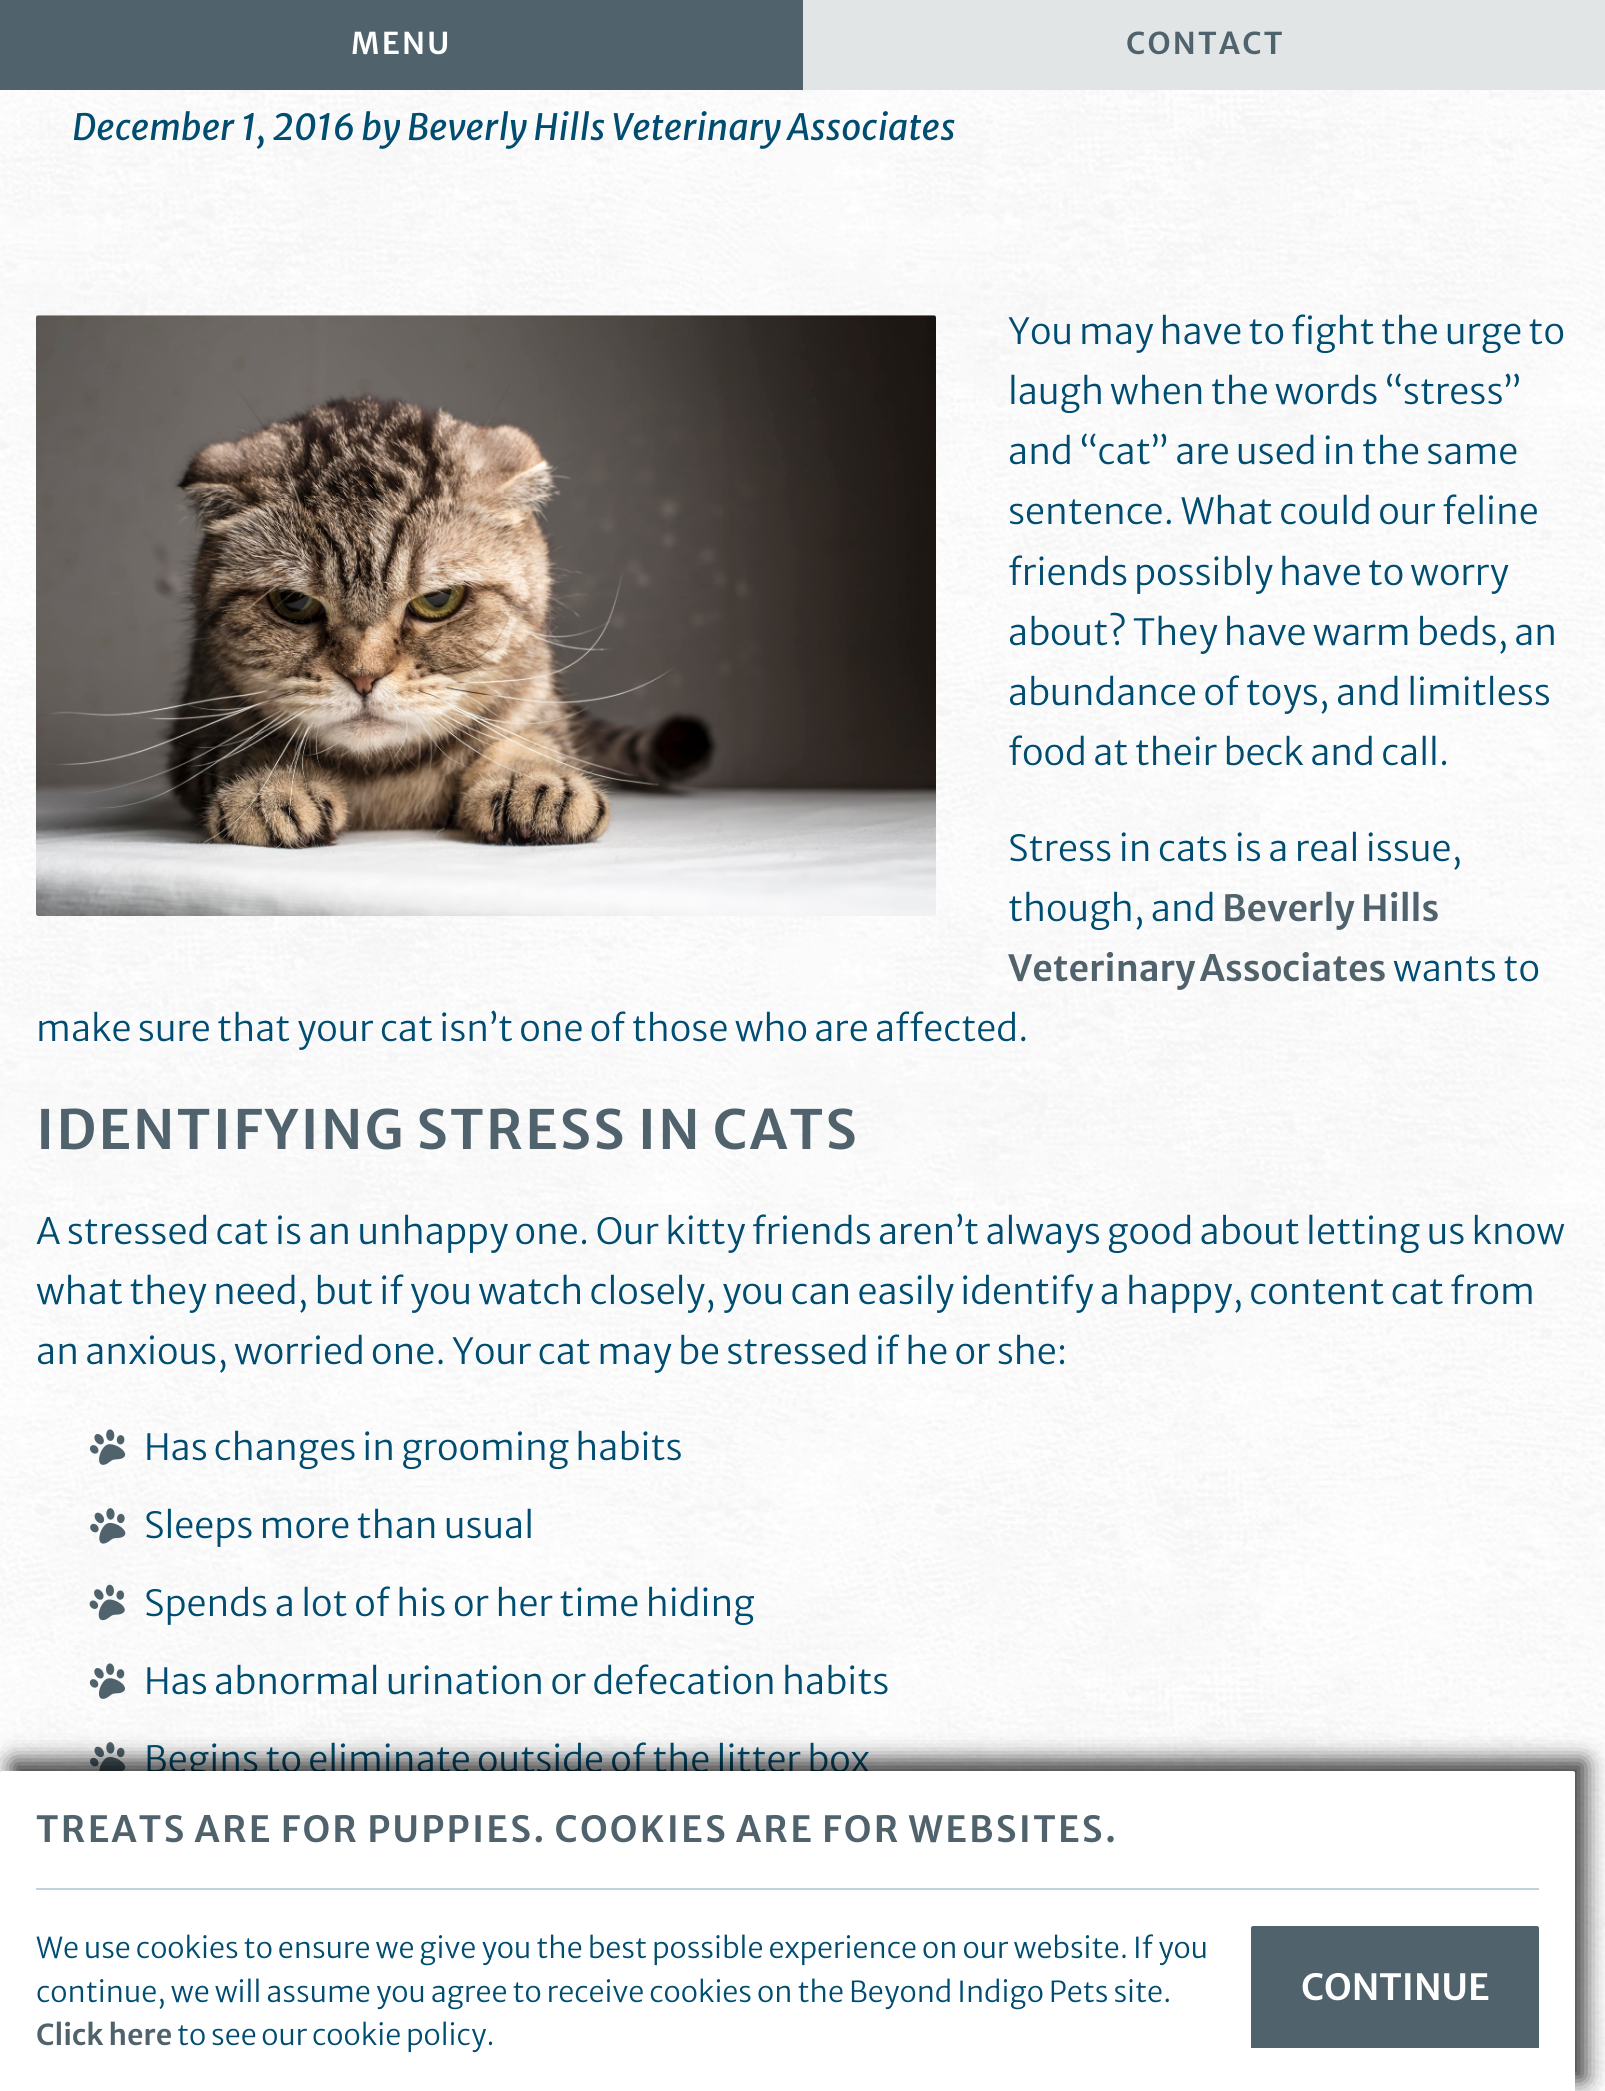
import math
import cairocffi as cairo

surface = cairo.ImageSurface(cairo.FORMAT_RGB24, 1605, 2091)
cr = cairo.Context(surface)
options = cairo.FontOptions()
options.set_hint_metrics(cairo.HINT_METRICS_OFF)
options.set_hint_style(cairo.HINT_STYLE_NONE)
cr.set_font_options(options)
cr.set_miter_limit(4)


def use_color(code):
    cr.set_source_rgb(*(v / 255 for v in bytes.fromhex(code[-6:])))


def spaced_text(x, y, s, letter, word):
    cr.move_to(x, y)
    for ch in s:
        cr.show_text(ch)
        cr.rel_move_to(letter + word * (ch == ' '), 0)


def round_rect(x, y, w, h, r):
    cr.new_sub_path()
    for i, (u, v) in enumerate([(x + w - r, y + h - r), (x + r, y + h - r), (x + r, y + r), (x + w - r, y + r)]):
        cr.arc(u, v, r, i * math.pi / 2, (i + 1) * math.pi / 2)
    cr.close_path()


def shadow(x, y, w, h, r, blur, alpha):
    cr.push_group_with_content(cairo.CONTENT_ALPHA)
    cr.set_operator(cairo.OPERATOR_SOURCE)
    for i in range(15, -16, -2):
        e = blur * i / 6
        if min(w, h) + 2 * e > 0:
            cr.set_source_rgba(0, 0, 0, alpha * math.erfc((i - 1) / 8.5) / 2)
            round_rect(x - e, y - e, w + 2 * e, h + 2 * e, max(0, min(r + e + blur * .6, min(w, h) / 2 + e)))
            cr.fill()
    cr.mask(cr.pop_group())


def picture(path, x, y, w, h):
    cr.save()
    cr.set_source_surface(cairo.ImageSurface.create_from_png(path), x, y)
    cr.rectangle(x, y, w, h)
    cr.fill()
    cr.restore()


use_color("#ffffff")
cr.paint()
picture("img1.png", 0, 90, 1605, 2001)
use_color("#50636d")
cr.rectangle(0, 0, 803, 90)
cr.fill()
cr.select_font_face("Merriweather Sans SemiBold")
cr.set_font_size(30)
use_color("#ffffff")
spaced_text(351, 54, "MENU", 2.25, 0)
use_color("#e1e5e5")
cr.rectangle(803, 0, 802, 90)
cr.fill()
use_color("#50636d")
spaced_text(1126, 54, "CONTACT", 2.25, 0)
cr.select_font_face("Merriweather Sans", cairo.FONT_SLANT_ITALIC)
cr.set_font_size(36)
use_color("#004d71")
cr.move_to(72, 140)
cr.show_text("December 1, 2016 by")
spaced_text(407, 140, "Beverly Hills Veterinary Associates", 0, -0.5)
picture("img2.png", 36, 315, 900, 601)
cr.select_font_face("Merriweather Sans Light")
spaced_text(1008, 344, "You may have to fight the urge to", 0, -0.5)
spaced_text(1008, 404, "laugh when the words “stress”", 0, -0.5)
spaced_text(1008, 464, "and “cat” are used in the same", 0, -0.25)
cr.move_to(1008, 524)
cr.show_text("sentence. What could our feline")
spaced_text(1008, 585, "friends possibly have to worry", 0, -0.5)
spaced_text(1008, 645, "about? They have warm beds, an", 0, -0.5)
cr.move_to(1008, 705)
cr.show_text("abundance of toys, and limitless")
spaced_text(1008, 765, "food at their beck and call.", 0, -0.25)
cr.move_to(1008, 861)
cr.show_text("Stress in cats is a real issue,")
cr.move_to(1008, 921)
cr.show_text("though, and")
cr.select_font_face("Merriweather Sans SemiBold")
use_color("#50636d")
cr.move_to(1222, 921)
cr.show_text("Beverly Hills")
spaced_text(1008, 981, "Veterinary Associates", 0, -2)
cr.select_font_face("Merriweather Sans Light")
use_color("#004d71")
cr.move_to(1393, 981)
cr.show_text("wants to")
spaced_text(36, 1041, "make sure that your cat isn’t one of those who are affected.", 0, -0.25)
cr.select_font_face("Merriweather Sans SemiBold")
cr.set_font_size(54)
use_color("#50636d")
spaced_text(36, 1149, "IDENTIFYING STRESS IN CATS", 2.25, -1)
cr.select_font_face("Merriweather Sans Light")
cr.set_font_size(36)
use_color("#004d71")
spaced_text(36, 1244, "A stressed cat is an unhappy one. Our kitty friends aren’t always good about letting us know", 0, -0.25)
spaced_text(36, 1304, "what they need, but if you watch closely, you can easily identify a happy, content cat from", 0, -0.3)
spaced_text(36, 1364, "an anxious, worried one. Your cat may be stressed if he or she:", 0, -0.25)
picture("img3.png", 89, 1429, 37, 36)
spaced_text(144, 1460, "Has changes in grooming habits", 0, -0.5)
picture("img4.png", 90, 1508, 36, 36)
spaced_text(144, 1538, "Sleeps more than usual", 0, -0.25)
picture("img5.png", 89, 1584, 36, 37)
cr.move_to(144, 1616)
cr.show_text("Spends a lot of his or her time hiding")
picture("img6.png", 89, 1663, 36, 36)
spaced_text(144, 1694, "Has abnormal urination or defecation habits", 0, -0.25)
picture("img7.png", 90, 1742, 36, 29)
spaced_text(144, 1772, "Begins to eliminate outside of the litter box", 0, -0.25)
use_color("#000000")
shadow(11, 1760, 1575, 321, 2, 11, 0.75)
use_color("#ffffff")
round_rect(0, 1771, 1575, 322, 2)
cr.fill()
cr.select_font_face("Merriweather Sans SemiBold")
use_color("#50636d")
spaced_text(36, 1842, "TREATS ARE FOR PUPPIES. COOKIES ARE FOR WEBSITES.", 2.25, -0.75)
use_color("#bfd3dc")
cr.rectangle(36, 1888, 1503, 2)
cr.fill()
cr.select_font_face("Merriweather Sans Light")
cr.set_font_size(28.8)
use_color("#004d71")
spaced_text(36, 1958, "We use cookies to ensure we give you the best possible experience on our website. If you", 0, -0.25)
spaced_text(36, 2002, "continue, we will assume you agree to receive cookies on the Beyond Indigo Pets site.", 0, -0.25)
cr.select_font_face("Merriweather Sans SemiBold")
use_color("#50636d")
cr.move_to(36, 2045)
cr.show_text("Click here")
cr.select_font_face("Merriweather Sans Light")
use_color("#004d71")
spaced_text(177, 2045, "to see our cookie policy.", 0, -0.5)
use_color("#50636d")
cr.new_path()
cr.move_to(1253, 1926)
cr.line_to(1537, 1926)
cr.curve_to(1538, 1926, 1539, 1927, 1539, 1928)
cr.line_to(1539, 2048)
cr.line_to(1251, 2048)
cr.line_to(1251, 1928)
cr.curve_to(1251, 1927, 1252, 1926, 1253, 1926)
cr.close_path()
cr.fill()
cr.select_font_face("Merriweather Sans SemiBold")
cr.set_font_size(36)
use_color("#ffffff")
cr.move_to(1301, 2000)
cr.show_text("CONTINUE")
surface.write_to_png("result.png")
